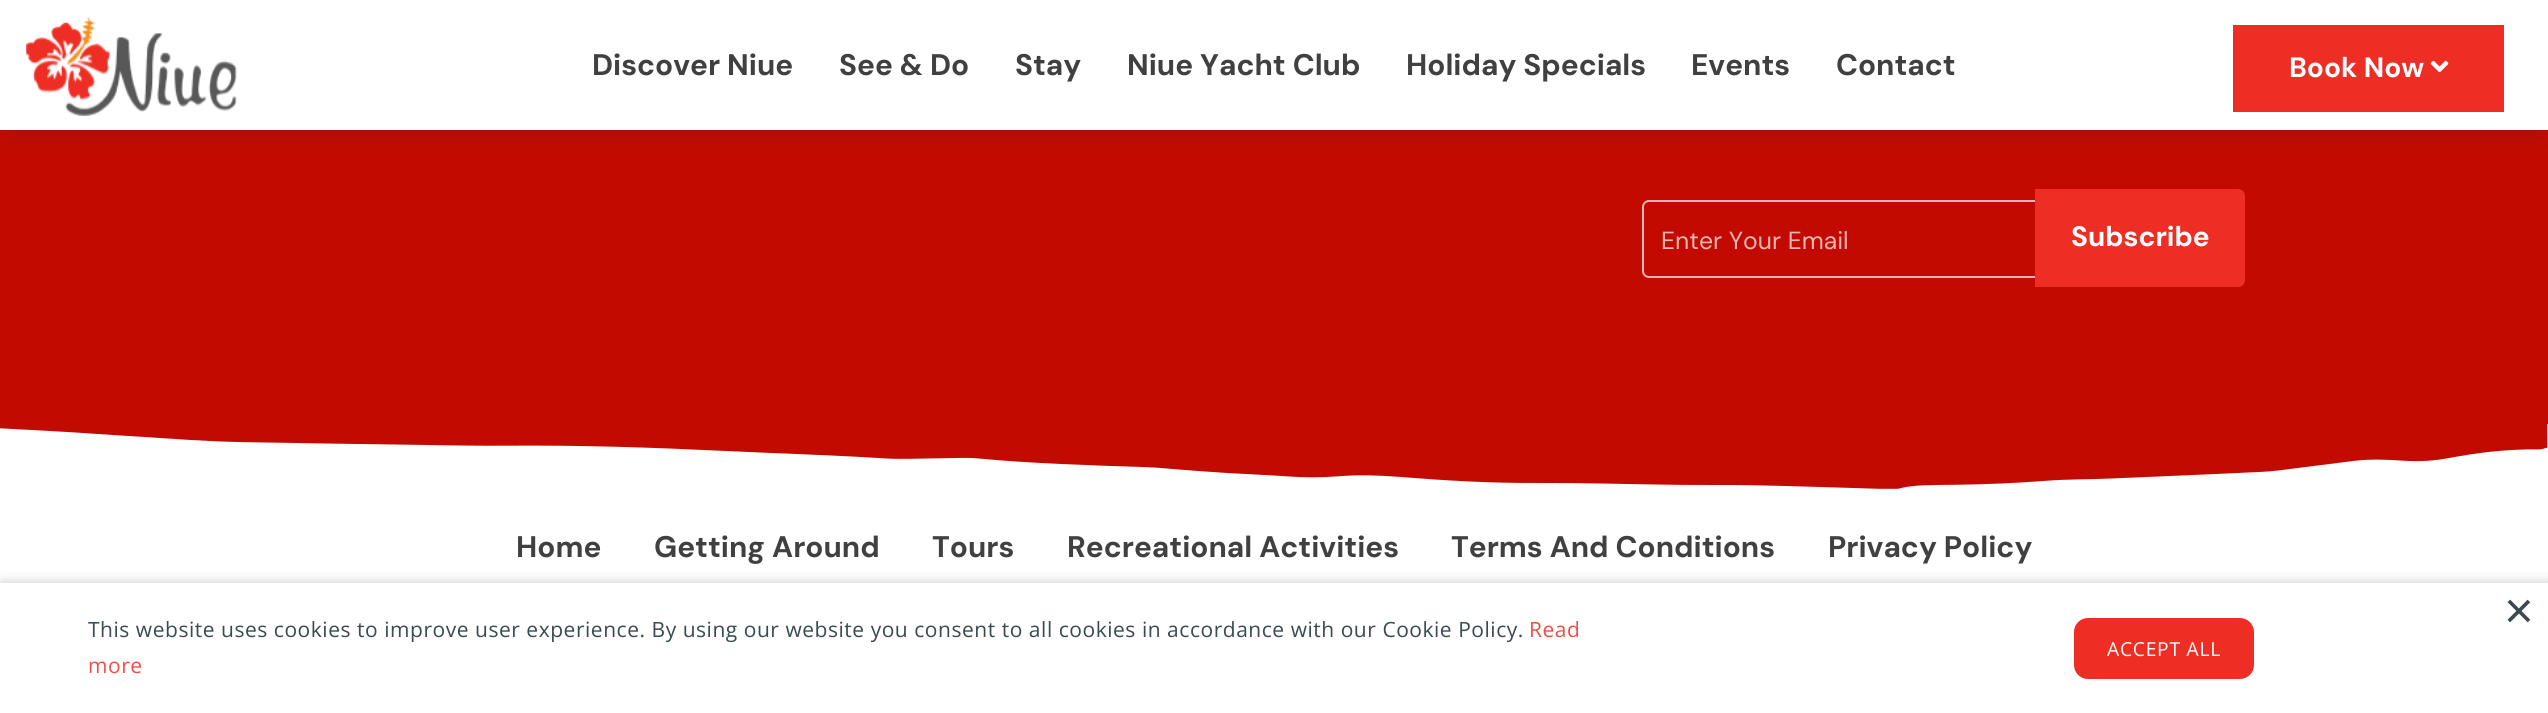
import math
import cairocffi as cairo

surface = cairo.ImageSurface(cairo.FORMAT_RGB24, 2548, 713)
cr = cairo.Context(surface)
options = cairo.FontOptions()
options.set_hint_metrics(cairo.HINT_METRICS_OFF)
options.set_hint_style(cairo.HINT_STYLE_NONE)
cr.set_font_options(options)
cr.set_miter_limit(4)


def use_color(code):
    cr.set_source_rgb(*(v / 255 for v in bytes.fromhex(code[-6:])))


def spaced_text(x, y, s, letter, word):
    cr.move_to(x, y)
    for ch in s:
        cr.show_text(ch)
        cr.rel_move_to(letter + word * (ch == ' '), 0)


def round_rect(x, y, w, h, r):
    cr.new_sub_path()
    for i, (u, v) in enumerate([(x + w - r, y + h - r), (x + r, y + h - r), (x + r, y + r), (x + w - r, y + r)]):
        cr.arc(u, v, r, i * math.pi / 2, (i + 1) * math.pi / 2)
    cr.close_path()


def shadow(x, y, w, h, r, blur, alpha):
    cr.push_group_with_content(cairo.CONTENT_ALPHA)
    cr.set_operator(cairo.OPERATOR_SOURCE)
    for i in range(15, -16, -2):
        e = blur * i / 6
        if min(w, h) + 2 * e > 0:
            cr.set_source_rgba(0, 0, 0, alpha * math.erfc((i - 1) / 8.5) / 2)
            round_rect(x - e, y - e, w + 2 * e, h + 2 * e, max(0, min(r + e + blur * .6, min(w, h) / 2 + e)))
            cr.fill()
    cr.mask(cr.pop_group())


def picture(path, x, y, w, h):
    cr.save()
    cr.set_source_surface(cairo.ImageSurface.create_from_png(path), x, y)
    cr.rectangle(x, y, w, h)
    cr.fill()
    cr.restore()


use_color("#ffffff")
cr.paint()
use_color("#c20a00")
cr.rectangle(0, 130, 2548, 294)
cr.fill()
use_color("#333333")
shadow(11, 11, 2527, 108, 0, 13, 1)
use_color("#ffffff")
cr.rectangle(0, 0, 2548, 130)
cr.fill()
picture("img1.png", 26, 17, 211, 99)
cr.select_font_face("DM Sans", cairo.FONT_SLANT_NORMAL, cairo.FONT_WEIGHT_BOLD)
cr.set_font_size(29.75)
use_color("#404041")
cr.move_to(592, 75)
cr.show_text("Discover Niue")
cr.move_to(839, 75)
cr.show_text("See & Do")
cr.move_to(1015, 75)
cr.show_text("Stay")
cr.move_to(1127, 75)
cr.show_text("Niue Yacht Club")
cr.move_to(1406, 75)
cr.show_text("Holiday Specials")
cr.move_to(1691, 75)
cr.show_text("Events")
cr.move_to(1836, 75)
cr.show_text("Contact")
use_color("#ee2e24")
cr.rectangle(2233, 25, 271, 87)
cr.fill()
cr.set_font_size(28)
use_color("#ffffff")
cr.move_to(2289, 77)
cr.show_text("Book Now")
picture("img2.png", 2430, 60, 19, 13)
round_rect(1643, 201, 593, 76, 6)
use_color("#edb6b3")
cr.stroke()
cr.select_font_face("DM Sans")
cr.set_font_size(24.75)
cr.move_to(1661, 249)
cr.show_text("Enter Your Email")
use_color("#ee2e24")
cr.new_path()
cr.move_to(2035, 189)
cr.line_to(2238, 189)
cr.curve_to(2242, 189, 2245, 192, 2245, 196)
cr.line_to(2245, 280)
cr.curve_to(2245, 284, 2242, 287, 2238, 287)
cr.line_to(2035, 287)
cr.close_path()
cr.fill()
cr.select_font_face("DM Sans", cairo.FONT_SLANT_NORMAL, cairo.FONT_WEIGHT_BOLD)
cr.set_font_size(28)
use_color("#ffffff")
cr.move_to(2071, 246)
cr.show_text("Subscribe")
picture("img3.png", 0, 424, 2548, 65)
cr.set_font_size(29.75)
use_color("#404041")
cr.move_to(516, 557)
cr.show_text("Home")
cr.move_to(654, 557)
cr.show_text("Getting Around")
cr.move_to(932, 557)
cr.show_text("Tours")
cr.move_to(1067, 557)
cr.show_text("Recreational Activities")
cr.move_to(1451, 557)
cr.show_text("Terms And Conditions")
cr.move_to(1828, 557)
cr.show_text("Privacy Policy")
use_color("#000000")
shadow(2, 586, 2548, 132, 0, 7, 0.35)
use_color("#ffffff")
cr.rectangle(0, 583, 2548, 130)
cr.fill()
cr.select_font_face("Liberation Sans")
cr.set_font_size(51)
use_color("#394b50")
cr.move_to(2504, 628)
cr.show_text("×")
cr.select_font_face("Open Sans")
cr.set_font_size(21)
spaced_text(88, 637, "This website uses cookies to improve user experience. By using our website you consent to all cookies in accordance with our Cookie Policy.", 0.53, 0)
use_color("#f14d45")
spaced_text(1529, 637, "Read", 0.53, 0)
spaced_text(88, 673, "more", 0.53, 0)
use_color("#ee2e24")
round_rect(2074, 618, 180, 61, 14)
cr.fill()
cr.set_font_size(19.25)
use_color("#ffffff")
spaced_text(2107, 656, "ACCEPT ALL", 0.75, 0)
surface.write_to_png("result.png")
